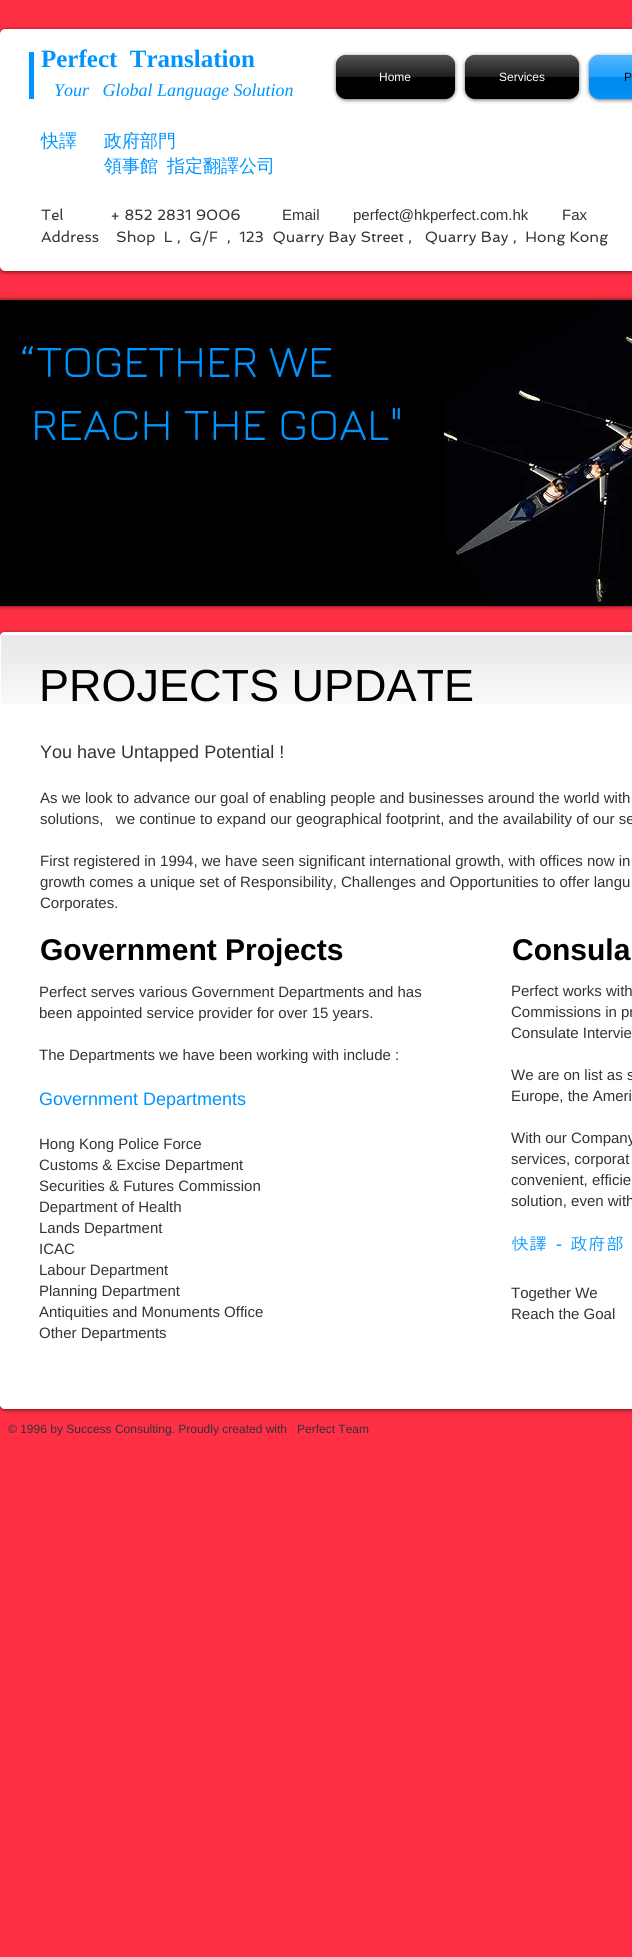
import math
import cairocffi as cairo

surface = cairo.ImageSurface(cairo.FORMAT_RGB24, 632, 1957)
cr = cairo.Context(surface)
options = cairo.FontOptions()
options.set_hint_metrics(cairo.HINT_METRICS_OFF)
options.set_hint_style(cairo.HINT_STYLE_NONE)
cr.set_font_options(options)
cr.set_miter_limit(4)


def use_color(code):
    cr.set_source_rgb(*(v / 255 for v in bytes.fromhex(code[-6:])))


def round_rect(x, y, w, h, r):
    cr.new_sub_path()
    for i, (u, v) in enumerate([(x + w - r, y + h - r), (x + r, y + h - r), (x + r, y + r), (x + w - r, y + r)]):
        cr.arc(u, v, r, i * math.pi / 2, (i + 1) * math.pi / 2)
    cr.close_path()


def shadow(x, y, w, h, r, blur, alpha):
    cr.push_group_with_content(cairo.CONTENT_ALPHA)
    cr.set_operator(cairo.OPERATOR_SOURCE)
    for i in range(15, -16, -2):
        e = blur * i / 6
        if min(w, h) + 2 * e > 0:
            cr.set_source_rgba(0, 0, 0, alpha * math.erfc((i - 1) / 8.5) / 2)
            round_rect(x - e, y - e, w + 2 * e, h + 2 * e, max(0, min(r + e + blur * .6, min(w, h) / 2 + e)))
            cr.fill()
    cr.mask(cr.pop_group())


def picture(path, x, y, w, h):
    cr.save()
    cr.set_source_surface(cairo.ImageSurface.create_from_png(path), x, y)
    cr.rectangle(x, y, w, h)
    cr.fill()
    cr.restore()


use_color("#ff2f45")
cr.paint()
use_color("#000000")
shadow(0, 30, 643, 242, 5, 2, 0.6)
use_color("#ffffff")
round_rect(1, 30, 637, 240, 4)
cr.fill_preserve()
cr.stroke()
use_color("#0094ff")
cr.rectangle(29, 52, 5, 47)
cr.fill()
cr.select_font_face("Liberation Serif", cairo.FONT_SLANT_NORMAL, cairo.FONT_WEIGHT_BOLD)
cr.set_font_size(25)
cr.move_to(41, 67)
cr.show_text("Perfect  Translation")
cr.select_font_face("Liberation Serif", cairo.FONT_SLANT_ITALIC)
cr.set_font_size(18)
cr.move_to(54, 96)
cr.show_text("Your   Global Language Solution")
cr.select_font_face("WenQuanYi Zen Hei Medium")
cr.move_to(41, 147)
cr.show_text("快譯")
cr.move_to(104, 147)
cr.show_text("政府部門")
cr.move_to(104, 172)
cr.show_text("領事館")
cr.move_to(167, 172)
cr.show_text("指定翻譯公司")
cr.select_font_face("Spinnaker")
cr.set_font_size(15)
use_color("#333333")
cr.move_to(41, 220)
cr.show_text("Tel           + 852 2831 9006")
cr.select_font_face("Liberation Sans")
cr.move_to(282, 220)
cr.show_text("Email")
cr.move_to(353, 220)
cr.show_text("perfect@hkperfect.com.hk")
cr.move_to(562, 220)
cr.show_text("Fax")
cr.select_font_face("Spinnaker")
cr.move_to(41, 242)
cr.show_text("Address    Shop  L ,  G/F  ,  123  Quarry Bay Street ,   Quarry Bay ,  Hong Kong")
use_color("#000000")
shadow(336, 56, 119, 44, 10, 2, 0.6)
use_color("#000000")
round_rect(336, 55, 119, 44, 10)
cr.fill()
picture("img1.png", 336, 55, 119, 22)
cr.select_font_face("Liberation Sans")
cr.set_font_size(12)
use_color("#ffffff")
cr.move_to(379, 81)
cr.show_text("Home")
use_color("#000000")
shadow(465, 56, 114, 44, 10, 2, 0.6)
use_color("#000000")
round_rect(465, 55, 114, 44, 10)
cr.fill()
picture("img2.png", 465, 55, 114, 22)
use_color("#ffffff")
cr.move_to(499, 81)
cr.show_text("Services")
use_color("#000000")
shadow(589, 56, 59, 44, 10, 2, 0.6)
use_color("#0094ff")
round_rect(589, 55, 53, 44, 10)
cr.fill()
picture("img3.png", 589, 55, 43, 43)
use_color("#000000")
cr.move_to(624, 81)
cr.show_text("P")
use_color("#000000")
shadow(0, 300, 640, 306, 0, 2.5, 0.7)
use_color("#000000")
cr.rectangle(0, 300, 444, 306)
cr.fill()
cr.select_font_face("Jura")
cr.set_font_size(45)
use_color("#0094ff")
cr.move_to(20, 377)
cr.show_text("“TOGETHER WE")
cr.move_to(31, 440)
cr.show_text("REACH THE GOAL\"")
picture("img4.png", 444, 300, 188, 306)
use_color("#000000")
shadow(0, 633, 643, 777, 5, 2, 0.6)
use_color("#ffffff")
round_rect(0, 632, 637, 777, 5)
cr.fill()
picture("img5.png", 0, 635, 632, 69)
round_rect(0.5, 632.5, 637, 776, 4.5)
cr.set_line_width(1)
cr.stroke()
cr.select_font_face("Liberation Sans")
use_color("#000000")
cr.move_to(39, 701)
cr.show_text("PROJECTS UPDATE")
cr.set_font_size(18)
use_color("#333333")
cr.move_to(40, 758)
cr.show_text("You have Untapped Potential !")
cr.set_font_size(15)
cr.move_to(40, 803)
cr.show_text("As we look to advance our goal of enabling people and businesses around the world with")
cr.move_to(40, 824)
cr.show_text("solutions,   we continue to expand our geographical footprint, and the availability of our se")
cr.move_to(40, 866)
cr.show_text("First registered in 1994, we have seen significant international growth, with offices now in")
cr.move_to(40, 887)
cr.show_text("growth comes a unique set of Responsibility, Challenges and Opportunities to offer langu")
cr.move_to(40, 908)
cr.show_text("Corporates.")
cr.select_font_face("Liberation Sans", cairo.FONT_SLANT_NORMAL, cairo.FONT_WEIGHT_BOLD)
cr.set_font_size(30)
use_color("#000000")
cr.move_to(40, 960)
cr.show_text("Government Projects")
cr.move_to(512, 960)
cr.show_text("Consula")
cr.select_font_face("Liberation Sans")
cr.set_font_size(15)
use_color("#333333")
cr.move_to(39, 997)
cr.show_text("Perfect serves various Government Departments and has")
cr.move_to(39, 1018)
cr.show_text("been appointed service provider for over 15 years.")
cr.move_to(39, 1060)
cr.show_text("The Departments we have been working with include :")
cr.set_font_size(18)
use_color("#0094ff")
cr.move_to(39, 1105)
cr.show_text("Government Departments")
cr.set_font_size(15)
use_color("#333333")
cr.move_to(39, 1149)
cr.show_text("Hong Kong Police Force")
cr.move_to(39, 1170)
cr.show_text("Customs & Excise Department")
cr.move_to(39, 1191)
cr.show_text("Securities & Futures Commission")
cr.move_to(39, 1212)
cr.show_text("Department of Health")
cr.move_to(39, 1233)
cr.show_text("Lands Department")
cr.move_to(39, 1254)
cr.show_text("ICAC")
cr.move_to(39, 1275)
cr.show_text("Labour Department")
cr.move_to(39, 1296)
cr.show_text("Planning Department")
cr.move_to(39, 1317)
cr.show_text("Antiquities and Monuments Office")
cr.move_to(39, 1338)
cr.show_text("Other Departments")
cr.move_to(511, 996)
cr.show_text("Perfect works with")
cr.move_to(511, 1017)
cr.show_text("Commissions in pr")
cr.move_to(511, 1038)
cr.show_text("Consulate Intervie")
cr.move_to(511, 1080)
cr.show_text("We are on list as s")
cr.move_to(511, 1101)
cr.show_text("Europe, the Ameri")
cr.move_to(511, 1143)
cr.show_text("With our Company")
cr.move_to(511, 1164)
cr.show_text("services, corporat")
cr.move_to(511, 1185)
cr.show_text("convenient, efficie")
cr.move_to(511, 1206)
cr.show_text("solution, even with")
cr.select_font_face("Dotum")
cr.set_font_size(18)
use_color("#0094ff")
cr.move_to(511, 1250)
cr.show_text("快譯")
cr.select_font_face("Liberation Sans")
cr.move_to(556, 1250)
cr.show_text("-")
cr.select_font_face("Dotum")
cr.move_to(570, 1250)
cr.show_text("政府部")
cr.select_font_face("Liberation Sans")
cr.set_font_size(15)
use_color("#333333")
cr.move_to(511, 1298)
cr.show_text("Together We")
cr.move_to(511, 1319)
cr.show_text("Reach the Goal")
cr.set_font_size(12)
cr.move_to(8, 1433)
cr.show_text("© 1996 by Success Consulting. Proudly created with")
cr.move_to(297, 1433)
cr.show_text("Perfect Team")
surface.write_to_png("result.png")
